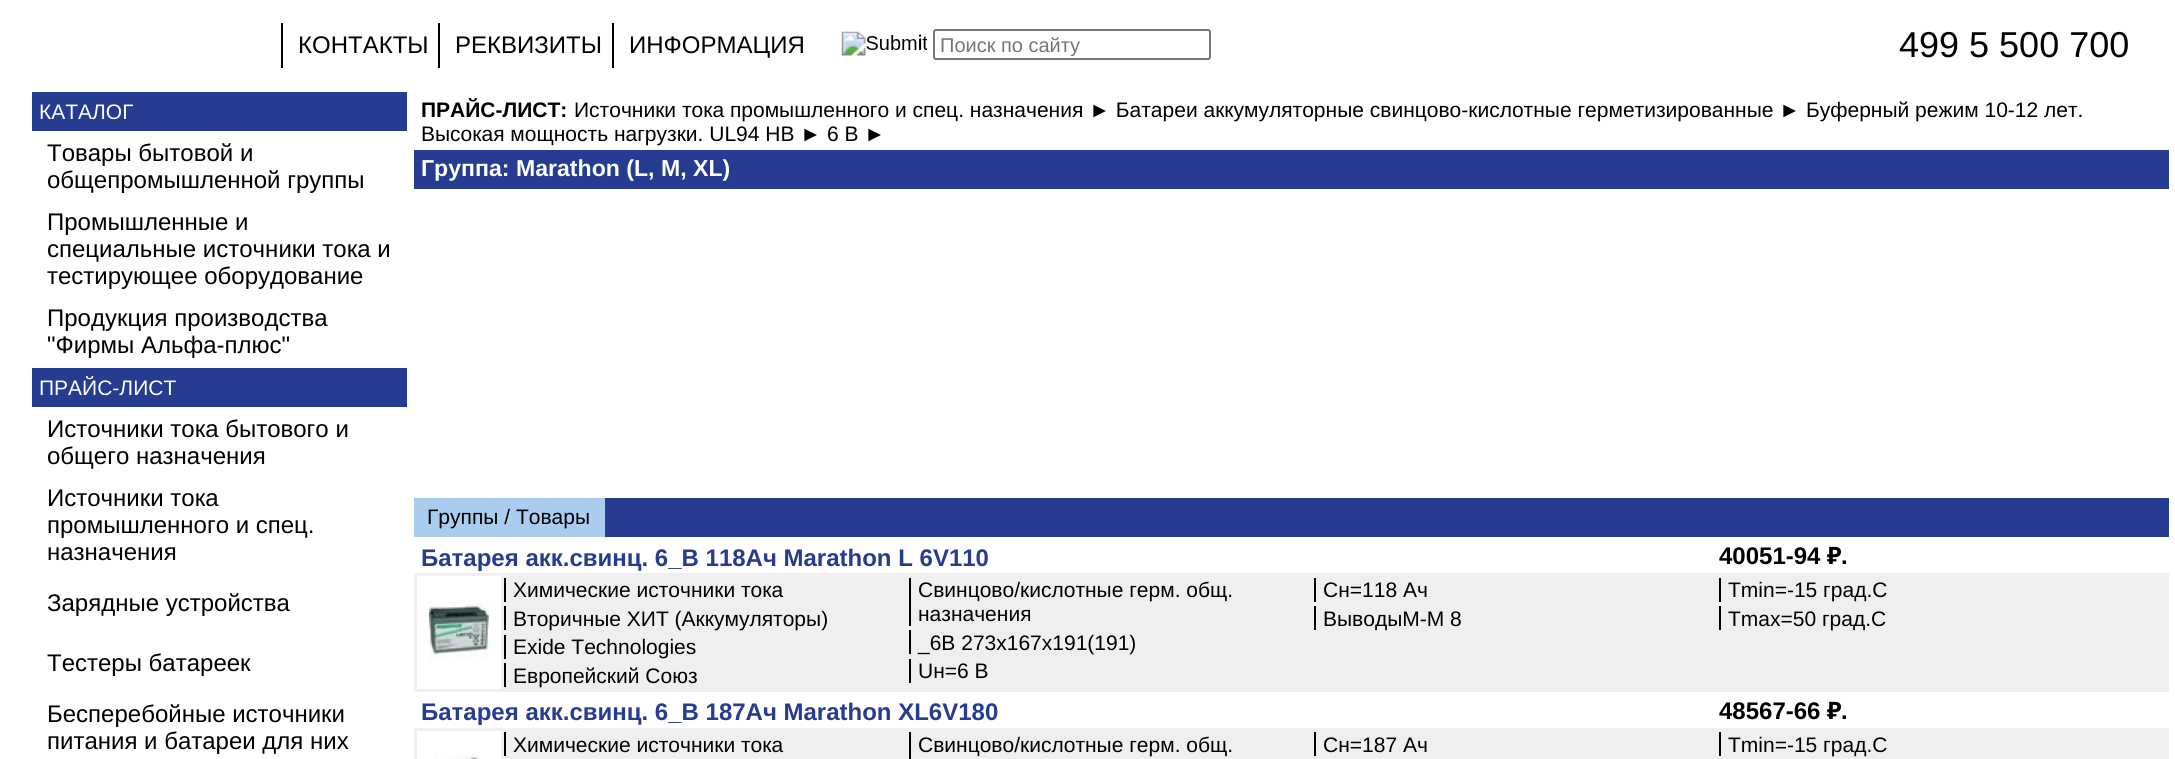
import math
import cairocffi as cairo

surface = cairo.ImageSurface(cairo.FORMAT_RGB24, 2175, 759)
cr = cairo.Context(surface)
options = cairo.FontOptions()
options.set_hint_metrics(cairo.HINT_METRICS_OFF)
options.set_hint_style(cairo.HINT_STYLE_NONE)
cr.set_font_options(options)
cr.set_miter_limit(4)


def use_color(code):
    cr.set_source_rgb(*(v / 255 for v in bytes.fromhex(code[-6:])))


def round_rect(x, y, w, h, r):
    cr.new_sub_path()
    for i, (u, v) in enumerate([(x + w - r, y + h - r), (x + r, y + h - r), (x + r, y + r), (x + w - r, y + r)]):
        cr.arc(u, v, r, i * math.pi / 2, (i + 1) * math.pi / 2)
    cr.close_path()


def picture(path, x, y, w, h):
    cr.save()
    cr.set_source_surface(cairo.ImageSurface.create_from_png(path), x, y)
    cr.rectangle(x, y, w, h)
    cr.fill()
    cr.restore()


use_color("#ffffff")
cr.paint()
use_color("#000000")
cr.rectangle(281, 23, 2, 45)
cr.fill()
cr.select_font_face("Liberation Sans")
cr.set_font_size(24)
cr.move_to(298, 53)
cr.show_text("КОНТАКТЫ")
cr.rectangle(438, 23, 2, 45)
cr.fill()
cr.move_to(455, 53)
cr.show_text("РЕКВИЗИТЫ")
cr.rectangle(612, 23, 2, 45)
cr.fill()
cr.move_to(629, 53)
cr.show_text("ИНФОРМАЦИЯ")
picture("img1.png", 841, 31, 86, 25)
cr.set_font_size(20)
cr.move_to(918, 49)
cr.show_text("i")
round_rect(934, 30, 276, 29, 2)
use_color("#767676")
cr.stroke()
use_color("#757575")
cr.move_to(940, 52)
cr.show_text("Поиск по сайту")
cr.set_font_size(36)
use_color("#000000")
cr.move_to(1899, 57)
cr.show_text("499 5 500 700")
use_color("#263c91")
cr.rectangle(32, 92, 375, 39)
cr.fill()
cr.set_font_size(21)
use_color("#ffffff")
cr.move_to(39, 119)
cr.show_text("КАТАЛОГ")
cr.set_font_size(24)
use_color("#000000")
cr.move_to(47, 161)
cr.show_text("Товары бытовой и")
cr.move_to(47, 188)
cr.show_text("общепромышленной группы")
cr.move_to(47, 230)
cr.show_text("Промышленные и")
cr.move_to(47, 257)
cr.show_text("специальные источники тока и")
cr.move_to(47, 284)
cr.show_text("тестирующее оборудование")
cr.move_to(47, 326)
cr.show_text("Продукция производства")
cr.move_to(47, 353)
cr.show_text("\"Фирмы Альфа-плюс\"")
use_color("#263c91")
cr.rectangle(32, 368, 375, 39)
cr.fill()
cr.set_font_size(21)
use_color("#ffffff")
cr.move_to(39, 395)
cr.show_text("ПРАЙС-ЛИСТ")
cr.set_font_size(24)
use_color("#000000")
cr.move_to(47, 437)
cr.show_text("Источники тока бытового и")
cr.move_to(47, 464)
cr.show_text("общего назначения")
cr.move_to(47, 506)
cr.show_text("Источники тока")
cr.move_to(47, 533)
cr.show_text("промышленного и спец.")
cr.move_to(47, 560)
cr.show_text("назначения")
cr.move_to(47, 611)
cr.show_text("Зарядные устройства")
cr.move_to(47, 671)
cr.show_text("Тестеры батареек")
cr.move_to(47, 722)
cr.show_text("Бесперебойные источники")
cr.move_to(47, 749)
cr.show_text("питания и батареи для них")
cr.select_font_face("Liberation Sans", cairo.FONT_SLANT_NORMAL, cairo.FONT_WEIGHT_BOLD)
cr.set_font_size(21)
cr.move_to(421, 117)
cr.show_text("ПРАЙС-ЛИСТ:")
cr.select_font_face("Liberation Sans")
cr.move_to(574, 117)
cr.show_text("Источники тока промышленного и спец. назначения ► Батареи аккумуляторные свинцово-кислотные герметизированные ► Буферный режим 10-12 лет.")
cr.move_to(421, 141)
cr.show_text("Высокая мощность нагрузки. UL94 HB ► 6 В ►")
use_color("#263c91")
cr.rectangle(414, 150, 1755, 39)
cr.fill()
cr.select_font_face("Liberation Sans", cairo.FONT_SLANT_NORMAL, cairo.FONT_WEIGHT_BOLD)
cr.set_font_size(23.1)
use_color("#ffffff")
cr.move_to(421, 176)
cr.show_text("Группа: Marathon (L, M, XL)")
use_color("#263c91")
cr.rectangle(605, 498, 1564, 39)
cr.fill()
use_color("#aaccee")
cr.rectangle(414, 498, 191, 39)
cr.fill()
cr.select_font_face("Liberation Sans")
cr.set_font_size(21)
use_color("#000000")
cr.move_to(427, 524)
cr.show_text("Группы / Товары")
cr.select_font_face("Liberation Sans", cairo.FONT_SLANT_NORMAL, cairo.FONT_WEIGHT_BOLD)
cr.set_font_size(24)
use_color("#263c91")
cr.move_to(421, 566)
cr.show_text("Батарея акк.свинц. 6_В 118Ач Marathon L 6V110")
use_color("#000000")
cr.move_to(1719, 564)
cr.show_text("40051-94")
cr.select_font_face("Noto Sans", cairo.FONT_SLANT_NORMAL, cairo.FONT_WEIGHT_BOLD)
cr.move_to(1827, 564)
cr.show_text("₽")
cr.select_font_face("Liberation Sans", cairo.FONT_SLANT_NORMAL, cairo.FONT_WEIGHT_BOLD)
cr.move_to(1841, 564)
cr.show_text(".")
use_color("#efefef")
cr.rectangle(504, 573, 1665, 119)
cr.fill()
cr.rectangle(415.5, 574.5, 87, 116)
cr.set_line_width(3)
cr.stroke()
picture("img2.png", 429, 600, 60, 60)
use_color("#000000")
cr.rectangle(504, 578, 2, 24)
cr.fill()
cr.select_font_face("Liberation Sans")
cr.set_font_size(21)
cr.move_to(513, 597)
cr.show_text("Химические источники тока")
cr.rectangle(504, 606, 2, 24)
cr.fill()
cr.move_to(513, 626)
cr.show_text("Вторичные ХИТ (Аккумуляторы)")
cr.rectangle(504, 635, 2, 24)
cr.fill()
cr.move_to(513, 654)
cr.show_text("Exide Technologies")
cr.rectangle(504, 663, 2, 24)
cr.fill()
cr.move_to(513, 683)
cr.show_text("Европейский Союз")
cr.rectangle(909, 578, 2, 48)
cr.fill()
cr.move_to(918, 597)
cr.show_text("Свинцово/кислотные герм. общ.")
cr.move_to(918, 621)
cr.show_text("назначения")
cr.rectangle(909, 630, 2, 24)
cr.fill()
cr.move_to(918, 650)
cr.show_text("_6В 273х167х191(191)")
cr.rectangle(909, 659, 2, 24)
cr.fill()
cr.move_to(918, 678)
cr.show_text("Uн=6 В")
cr.rectangle(1314, 578, 2, 24)
cr.fill()
cr.move_to(1323, 597)
cr.show_text("Сн=118 Ач")
cr.rectangle(1314, 606, 2, 24)
cr.fill()
cr.move_to(1323, 626)
cr.show_text("ВыводыM-M 8")
cr.rectangle(1719, 578, 2, 24)
cr.fill()
cr.move_to(1728, 597)
cr.show_text("Tmin=-15 град.С")
cr.rectangle(1719, 606, 2, 24)
cr.fill()
cr.move_to(1728, 626)
cr.show_text("Tmax=50 град.С")
cr.select_font_face("Liberation Sans", cairo.FONT_SLANT_NORMAL, cairo.FONT_WEIGHT_BOLD)
cr.set_font_size(24)
use_color("#263c91")
cr.move_to(421, 720)
cr.show_text("Батарея акк.свинц. 6_В 187Ач Marathon XL6V180")
use_color("#000000")
cr.move_to(1719, 719)
cr.show_text("48567-66")
cr.select_font_face("Noto Sans", cairo.FONT_SLANT_NORMAL, cairo.FONT_WEIGHT_BOLD)
cr.move_to(1827, 719)
cr.show_text("₽")
cr.select_font_face("Liberation Sans", cairo.FONT_SLANT_NORMAL, cairo.FONT_WEIGHT_BOLD)
cr.move_to(1841, 719)
cr.show_text(".")
use_color("#efefef")
cr.rectangle(504, 728, 1665, 31)
cr.fill()
cr.rectangle(415.5, 729.5, 87, 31)
cr.stroke()
picture("img3.png", 434, 754, 45, 5)
use_color("#000000")
cr.rectangle(504, 732, 2, 24)
cr.fill()
cr.select_font_face("Liberation Sans")
cr.set_font_size(21)
cr.move_to(513, 752)
cr.show_text("Химические источники тока")
cr.rectangle(909, 732, 2, 27)
cr.fill()
cr.move_to(918, 752)
cr.show_text("Свинцово/кислотные герм. общ.")
cr.rectangle(1314, 732, 2, 24)
cr.fill()
cr.move_to(1323, 752)
cr.show_text("Сн=187 Ач")
cr.rectangle(1719, 732, 2, 24)
cr.fill()
cr.move_to(1728, 752)
cr.show_text("Tmin=-15 град.С")
surface.write_to_png("result.png")
